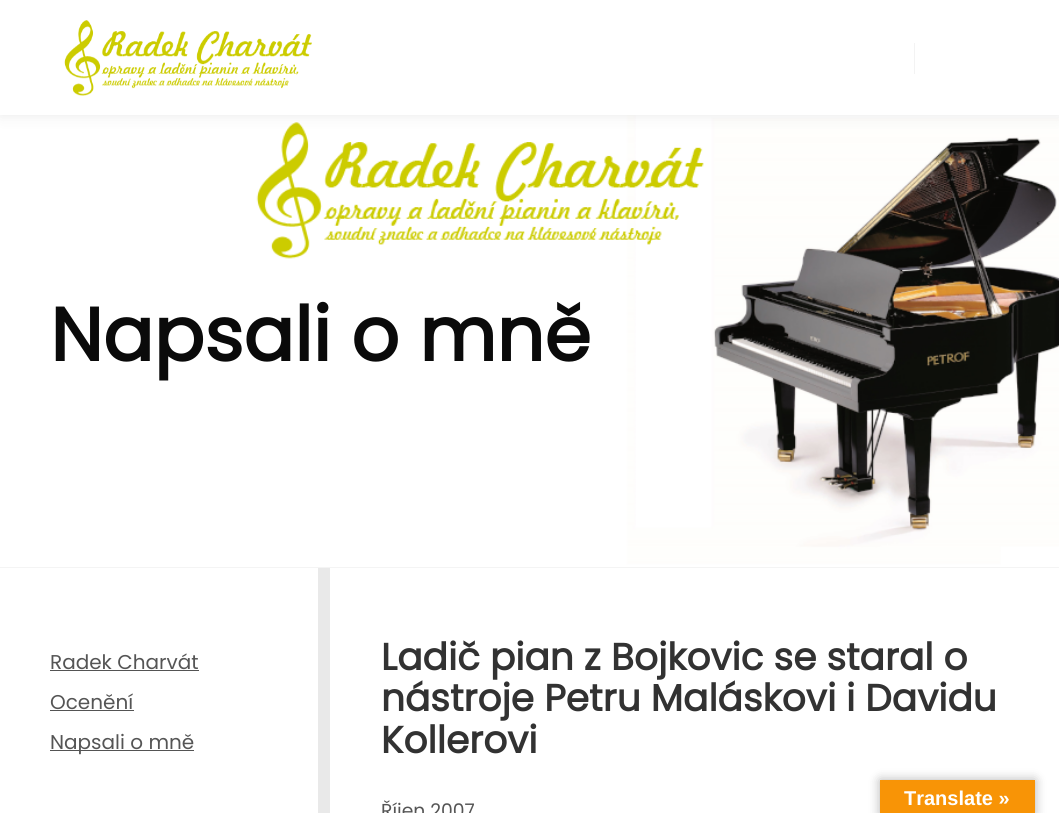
import math
import cairocffi as cairo

surface = cairo.ImageSurface(cairo.FORMAT_RGB24, 1059, 813)
cr = cairo.Context(surface)
options = cairo.FontOptions()
options.set_hint_metrics(cairo.HINT_METRICS_OFF)
options.set_hint_style(cairo.HINT_STYLE_NONE)
cr.set_font_options(options)
cr.set_miter_limit(4)


def use_color(code):
    cr.set_source_rgb(*(v / 255 for v in bytes.fromhex(code[-6:])))


def round_rect(x, y, w, h, r):
    cr.new_sub_path()
    for i, (u, v) in enumerate([(x + w - r, y + h - r), (x + r, y + h - r), (x + r, y + r), (x + w - r, y + r)]):
        cr.arc(u, v, r, i * math.pi / 2, (i + 1) * math.pi / 2)
    cr.close_path()


def shadow(x, y, w, h, r, blur, alpha):
    cr.push_group_with_content(cairo.CONTENT_ALPHA)
    cr.set_operator(cairo.OPERATOR_SOURCE)
    for i in range(15, -16, -2):
        e = blur * i / 6
        if min(w, h) + 2 * e > 0:
            cr.set_source_rgba(0, 0, 0, alpha * math.erfc((i - 1) / 8.5) / 2)
            round_rect(x - e, y - e, w + 2 * e, h + 2 * e, max(0, min(r + e + blur * .6, min(w, h) / 2 + e)))
            cr.fill()
    cr.mask(cr.pop_group())


def picture(path, x, y, w, h):
    cr.save()
    cr.set_source_surface(cairo.ImageSurface.create_from_png(path), x, y)
    cr.rectangle(x, y, w, h)
    cr.fill()
    cr.restore()


use_color("#e9e9e9")
cr.paint()
picture("img2.png", 0, 115, 1059, 453)
use_color("#000000")
shadow(0, 0, 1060, 115, 0, 7.5, 0.09)
use_color("#ffffff")
cr.rectangle(0, 0, 1059, 115)
cr.fill()
picture("img1.png", 64, 20, 248, 76)
use_color("#f3f3f3")
cr.rectangle(914, 43, 1, 31)
cr.fill()
cr.select_font_face("Poppins", cairo.FONT_SLANT_NORMAL, cairo.FONT_WEIGHT_BOLD)
cr.set_font_size(75)
use_color("#0a0a0a")
cr.move_to(50, 361)
cr.show_text("Napsali o mně")
use_color("#ffffff")
cr.rectangle(0, 568, 318, 245)
cr.fill()
cr.select_font_face("Poppins")
cr.set_font_size(20)
use_color("#555555")
cr.move_to(50, 669)
cr.show_text("Radek Charvát")
use_color("#535353")
cr.rectangle(50, 670, 149, 1)
cr.fill()
use_color("#555555")
cr.move_to(50, 709)
cr.show_text("Ocenění")
use_color("#535353")
cr.rectangle(50, 710, 84, 1)
cr.fill()
cr.rectangle(50, 750, 144, 1)
cr.fill()
use_color("#555555")
cr.move_to(50, 749)
cr.show_text("Napsali o mně")
use_color("#ffffff")
cr.rectangle(330, 568, 729, 245)
cr.fill()
cr.select_font_face("Poppins", cairo.FONT_SLANT_NORMAL, cairo.FONT_WEIGHT_BOLD)
cr.set_font_size(37.5)
use_color("#323232")
cr.move_to(381, 670)
cr.show_text("Ladič pian z Bojkovic se staral o")
cr.move_to(381, 711)
cr.show_text("nástroje Petru Maláskovi i Davidu")
cr.move_to(381, 753)
cr.show_text("Kollerovi")
cr.select_font_face("Poppins")
cr.set_font_size(18.75)
use_color("#555555")
cr.move_to(381, 817)
cr.show_text("Říjen 2007")
use_color("#000000")
shadow(880, 780, 155, 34, 0, 5.5, 0.3)
use_color("#f89406")
cr.rectangle(880, 780, 155, 33)
cr.fill()
cr.select_font_face("Liberation Sans", cairo.FONT_SLANT_NORMAL, cairo.FONT_WEIGHT_BOLD)
cr.set_font_size(20)
use_color("#ffffff")
cr.move_to(904, 805)
cr.show_text("Translate »")
surface.write_to_png("result.png")
